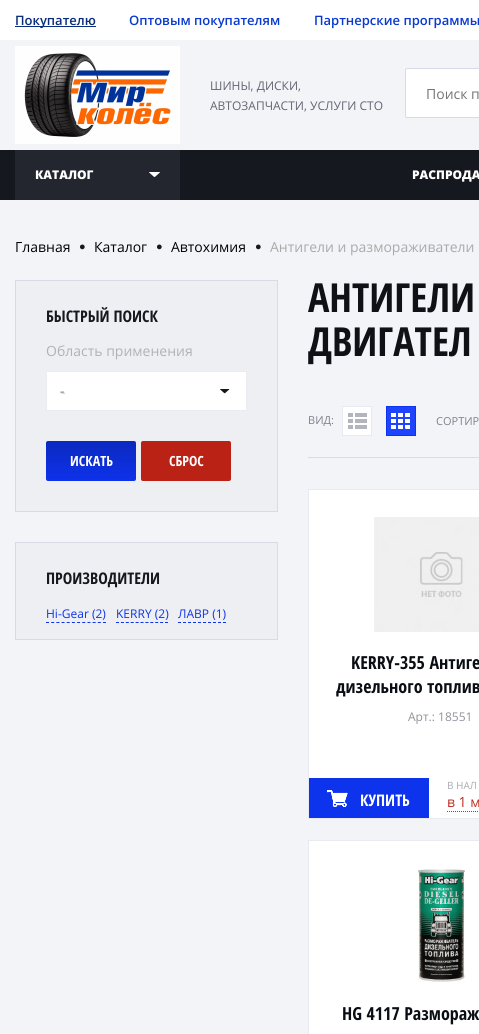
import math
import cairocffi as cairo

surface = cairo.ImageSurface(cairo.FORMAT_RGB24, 479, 1034)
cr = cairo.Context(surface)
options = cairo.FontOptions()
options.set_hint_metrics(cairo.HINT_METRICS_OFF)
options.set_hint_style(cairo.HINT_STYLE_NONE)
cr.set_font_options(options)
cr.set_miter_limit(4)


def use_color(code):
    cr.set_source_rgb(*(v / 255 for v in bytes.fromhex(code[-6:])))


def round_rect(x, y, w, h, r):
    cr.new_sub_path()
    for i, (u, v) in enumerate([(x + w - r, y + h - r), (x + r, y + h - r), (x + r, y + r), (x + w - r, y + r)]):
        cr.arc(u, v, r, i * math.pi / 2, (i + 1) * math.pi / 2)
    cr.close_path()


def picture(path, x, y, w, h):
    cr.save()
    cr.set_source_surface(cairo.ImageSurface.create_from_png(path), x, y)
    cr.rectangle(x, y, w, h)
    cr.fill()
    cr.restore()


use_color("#f3f4f7")
cr.paint()
use_color("#ffffff")
cr.rectangle(0, 0, 479, 40)
cr.fill()
use_color("#0a2d7a")
cr.rectangle(15, 26, 81, 1)
cr.fill()
cr.select_font_face("Open Sans SemiBold")
cr.set_font_size(13)
cr.move_to(15, 25)
cr.show_text("Покупателю")
use_color("#093acf")
cr.move_to(129, 25)
cr.show_text("Оптовым покупателям")
cr.move_to(314, 25)
cr.show_text("Партнерские программы")
picture("img1.png", 15, 46, 165, 98)
cr.select_font_face("Open Sans")
cr.set_font_size(12)
use_color("#656574")
cr.move_to(210, 90)
cr.show_text("ШИНЫ, ДИСКИ,")
cr.move_to(210, 110)
cr.show_text("АВТОЗАПЧАСТИ, УСЛУГИ СТО")
use_color("#ffffff")
round_rect(405.5, 68.5, 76, 49, 1.5)
cr.fill_preserve()
use_color("#d7d9e7")
cr.set_line_width(1)
cr.stroke()
cr.set_font_size(14)
use_color("#757575")
cr.move_to(426, 99)
cr.show_text("Поиск п")
use_color("#16181f")
cr.rectangle(0, 150, 479, 50)
cr.fill()
use_color("#23262f")
cr.rectangle(15, 150, 165, 50)
cr.fill()
cr.select_font_face("Open Sans ExtraBold")
cr.set_font_size(12)
use_color("#ffffff")
cr.move_to(35, 179)
cr.show_text("КАТАЛОГ")
picture("img2.png", 149, 172, 11, 5)
cr.move_to(412, 179)
cr.show_text("РАСПРОДА")
cr.select_font_face("Open Sans")
cr.set_font_size(14)
use_color("#020202")
cr.move_to(15, 252)
cr.show_text("Главная")
cr.select_font_face("Liberation Sans")
cr.set_font_size(11)
use_color("#16181f")
cr.move_to(79, 250)
cr.show_text("●")
cr.select_font_face("Open Sans")
cr.set_font_size(14)
use_color("#020202")
cr.move_to(94, 252)
cr.show_text("Каталог")
cr.select_font_face("Liberation Sans")
cr.set_font_size(11)
use_color("#16181f")
cr.move_to(156, 250)
cr.show_text("●")
cr.select_font_face("Open Sans")
cr.set_font_size(14)
use_color("#020202")
cr.move_to(171, 252)
cr.show_text("Автохимия")
cr.select_font_face("Liberation Sans")
cr.set_font_size(11)
use_color("#16181f")
cr.move_to(255, 250)
cr.show_text("●")
cr.select_font_face("Open Sans")
cr.set_font_size(14)
use_color("#aaaaaa")
cr.move_to(270, 252)
cr.show_text("Антигели и размораживатели")
use_color("#eeeff2")
cr.rectangle(15.5, 280.5, 262, 231)
cr.fill_preserve()
use_color("#d9dbe4")
cr.stroke()
cr.select_font_face("Open Sans Condensed", cairo.FONT_SLANT_NORMAL, cairo.FONT_WEIGHT_BOLD)
cr.set_font_size(16)
use_color("#16181f")
cr.move_to(46, 322)
cr.show_text("БЫСТРЫЙ ПОИСК")
cr.select_font_face("Open Sans")
cr.set_font_size(14)
use_color("#b1b2b5")
cr.move_to(46, 356)
cr.show_text("Область применения")
use_color("#ffffff")
cr.rectangle(46.5, 371.5, 200, 39)
cr.fill_preserve()
use_color("#ebecf1")
cr.stroke()
picture("img3.png", 220, 389, 10, 5)
cr.select_font_face("Open Sans SemiBold")
use_color("#888a91")
cr.move_to(60, 396)
cr.show_text("-")
use_color("#d5d6d9")
cr.move_to(61, 397)
cr.show_text("-")
gradient = cairo.LinearGradient(91, 481, 91, 441)
gradient.add_color_stop_rgba(0, 0.055, 0.196, 0.922, 1)
gradient.add_color_stop_rgba(1, 0.043, 0.161, 0.749, 1)
cr.set_source(gradient)
round_rect(46, 441, 90, 40, 2)
cr.fill()
cr.select_font_face("Open Sans Condensed", cairo.FONT_SLANT_NORMAL, cairo.FONT_WEIGHT_BOLD)
use_color("#ffffff")
cr.move_to(70, 466)
cr.show_text("ИСКАТЬ")
use_color("#b92214")
round_rect(141, 441, 90, 40, 2)
cr.fill()
use_color("#ffffff")
cr.move_to(169, 466)
cr.show_text("СБРОС")
use_color("#eeeff2")
cr.rectangle(15.5, 542.5, 262, 97)
cr.fill_preserve()
use_color("#d9dbe4")
cr.stroke()
cr.set_font_size(16)
use_color("#16181f")
cr.move_to(46, 584)
cr.show_text("ПРОИЗВОДИТЕЛИ")
cr.select_font_face("Open Sans")
cr.set_font_size(12)
use_color("#0e33ed")
cr.move_to(46, 618)
cr.show_text("Hi-Gear (2)")
cr.new_path()
cr.move_to(46, 622.5)
cr.line_to(106, 622.5)
cr.set_dash([3, 2.18])
cr.stroke()
cr.move_to(116, 618)
cr.show_text("KERRY (2)")
cr.new_path()
cr.move_to(116, 622.5)
cr.line_to(168, 622.5)
cr.set_dash([3, 1.9])
cr.stroke()
cr.move_to(178, 618)
cr.show_text("ЛАВР (1)")
cr.new_path()
cr.move_to(178, 622.5)
cr.line_to(226, 622.5)
cr.set_dash([3, 2])
cr.stroke()
cr.select_font_face("Open Sans Condensed", cairo.FONT_SLANT_NORMAL, cairo.FONT_WEIGHT_BOLD)
cr.set_font_size(40)
use_color("#101116")
cr.move_to(308, 312)
cr.show_text("АНТИГЕЛИ")
cr.move_to(308, 356)
cr.show_text("ДВИГАТЕЛ")
use_color("#d9dbe4")
cr.rectangle(308, 457, 171, 1)
cr.fill()
cr.select_font_face("Open Sans")
cr.set_font_size(11)
use_color("#7e8290")
cr.move_to(308, 424)
cr.show_text("ВИД:")
use_color("#ffffff")
cr.rectangle(343, 407, 28, 28)
cr.fill()
picture("img4.png", 348, 413, 19, 16)
cr.rectangle(342.5, 406.5, 29, 29)
use_color("#e7e8f2")
cr.set_dash([])
cr.stroke()
use_color("#1f44ff")
cr.rectangle(387, 407, 28, 28)
cr.fill()
picture("img5.png", 391, 413, 19, 16)
cr.rectangle(386.5, 406.5, 29, 29)
use_color("#0e33ef")
cr.stroke()
use_color("#7e8290")
cr.move_to(436, 425)
cr.show_text("CОРТИР")
use_color("#ffffff")
cr.rectangle(308.5, 489.5, 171, 329)
cr.fill_preserve()
use_color("#e8eaf0")
cr.stroke()
picture("img6.png", 374, 517, 105, 115)
cr.select_font_face("Open Sans Condensed", cairo.FONT_SLANT_NORMAL, cairo.FONT_WEIGHT_BOLD)
cr.set_font_size(18)
use_color("#0a0e14")
cr.move_to(351, 669)
cr.show_text("KERRY-355 Антиге")
cr.move_to(336, 693)
cr.show_text("дизельного топлив")
cr.select_font_face("Open Sans")
cr.set_font_size(12)
use_color("#90919b")
cr.move_to(408, 721)
cr.show_text("Арт.: 18551")
use_color("#0e33ed")
cr.rectangle(309, 778, 120, 40)
cr.fill()
picture("img7.png", 327, 790, 21, 17)
cr.select_font_face("Open Sans Condensed", cairo.FONT_SLANT_NORMAL, cairo.FONT_WEIGHT_BOLD)
cr.set_font_size(16)
use_color("#ffffff")
cr.move_to(360, 806)
cr.show_text("КУПИТЬ")
cr.select_font_face("Open Sans")
cr.set_font_size(10)
use_color("#a8abb2")
cr.move_to(447, 789)
cr.show_text("В НАЛ")
cr.set_font_size(14)
use_color("#bc2f20")
cr.move_to(447, 807)
cr.show_text("в 1 м")
cr.new_path()
cr.move_to(447, 811.5)
cr.line_to(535, 811.5)
cr.set_dash([1, 1])
cr.stroke()
use_color("#ffffff")
cr.rectangle(308.5, 840.5, 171, 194)
cr.fill_preserve()
use_color("#e8eaf0")
cr.set_dash([])
cr.stroke()
picture("img8.png", 418, 869, 47, 113)
cr.select_font_face("Open Sans Condensed", cairo.FONT_SLANT_NORMAL, cairo.FONT_WEIGHT_BOLD)
cr.set_font_size(18)
use_color("#0a0e14")
cr.move_to(342, 1020)
cr.show_text("HG 4117 Размораж")
surface.write_to_png("result.png")
